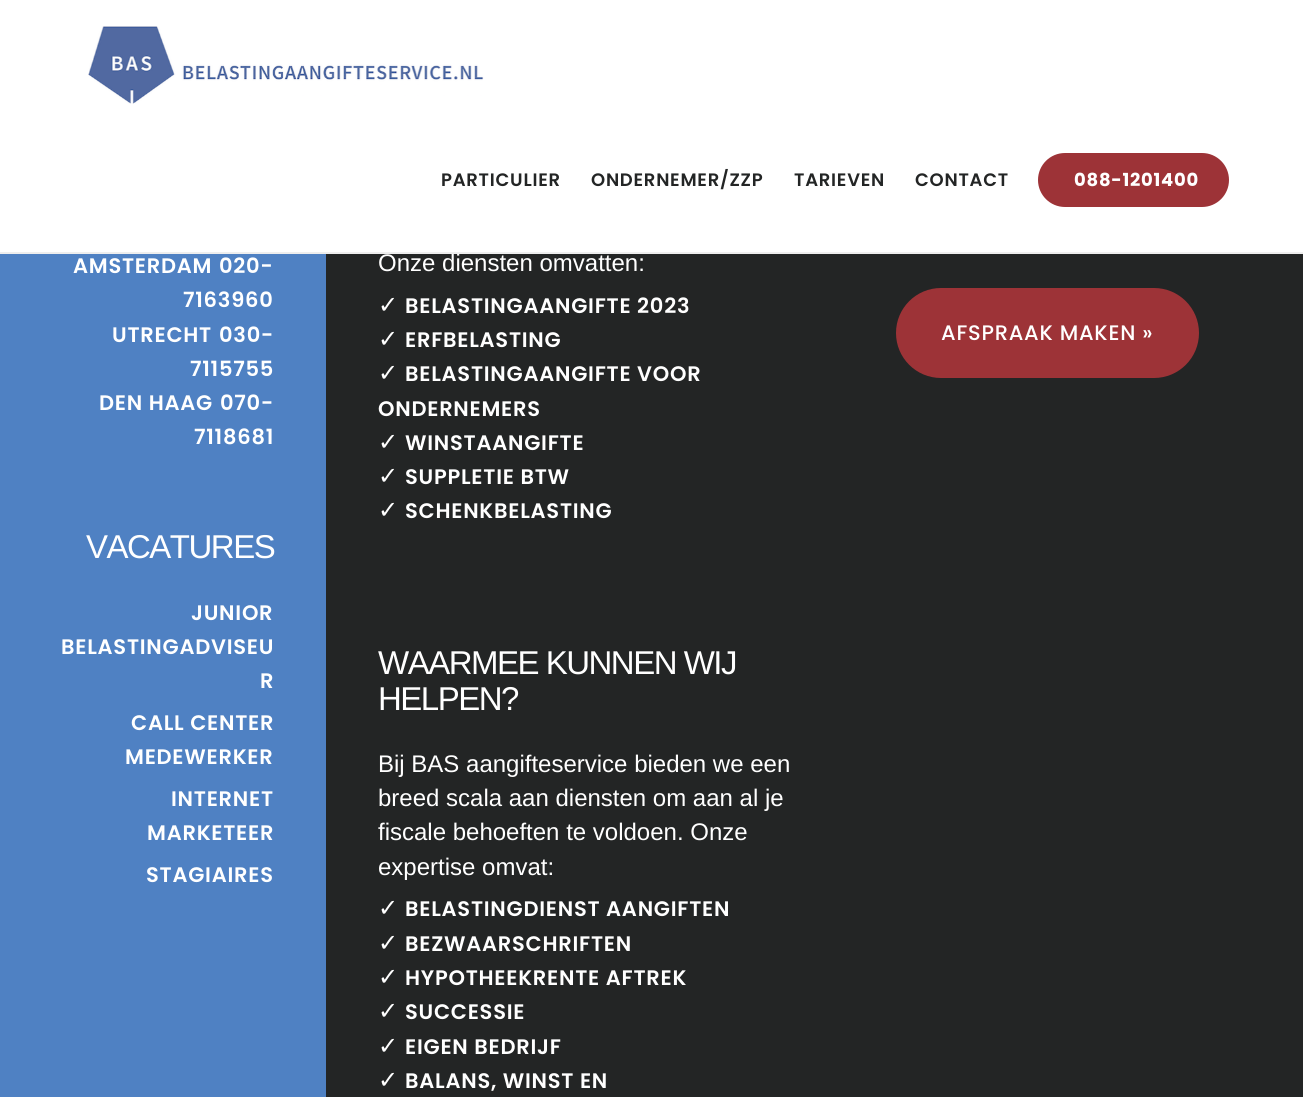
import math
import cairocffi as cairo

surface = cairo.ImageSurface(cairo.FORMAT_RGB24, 1303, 1097)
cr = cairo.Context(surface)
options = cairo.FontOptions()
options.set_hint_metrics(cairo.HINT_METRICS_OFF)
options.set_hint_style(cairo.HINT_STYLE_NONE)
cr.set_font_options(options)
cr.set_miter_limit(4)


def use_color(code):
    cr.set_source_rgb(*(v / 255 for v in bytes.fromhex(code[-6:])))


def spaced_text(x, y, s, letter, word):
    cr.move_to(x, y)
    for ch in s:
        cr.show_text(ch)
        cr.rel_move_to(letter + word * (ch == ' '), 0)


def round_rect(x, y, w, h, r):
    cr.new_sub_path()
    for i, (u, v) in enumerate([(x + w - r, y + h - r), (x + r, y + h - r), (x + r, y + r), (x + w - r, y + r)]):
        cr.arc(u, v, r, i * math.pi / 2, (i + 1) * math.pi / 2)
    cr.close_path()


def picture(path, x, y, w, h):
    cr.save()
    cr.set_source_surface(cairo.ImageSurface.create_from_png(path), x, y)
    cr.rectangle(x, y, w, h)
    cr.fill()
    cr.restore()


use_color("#232525")
cr.paint()
use_color("#ffffff")
cr.rectangle(0, 0, 1303, 252)
cr.fill()
cr.select_font_face("Liberation Sans")
cr.set_font_size(24)
cr.move_to(378, 271)
cr.show_text("Onze diensten omvatten:")
use_color("#eeeeee")
cr.rectangle(0, 252, 1303, 2)
cr.fill()
picture("img1.png", 88, 26, 396, 78)
cr.select_font_face("Poppins SemiBold")
cr.set_font_size(18)
use_color("#232525")
spaced_text(441, 186, "PARTICULIER", 0.75, 0)
spaced_text(591, 186, "ONDERNEMER/ZZP", 0.75, 0)
spaced_text(794, 186, "TARIEVEN", 0.75, 0)
spaced_text(915, 186, "CONTACT", 0.75, 0)
use_color("#9d3337")
round_rect(1038, 153, 191, 54, 27)
cr.fill()
cr.select_font_face("Poppins", cairo.FONT_SLANT_NORMAL, cairo.FONT_WEIGHT_BOLD)
use_color("#ffffff")
spaced_text(1074, 186, "088-1201400", 0.75, 0)
use_color("#4f81c3")
cr.rectangle(0, 254, 326, 843)
cr.fill()
cr.select_font_face("Poppins SemiBold")
cr.set_font_size(21)
use_color("#ffffff")
spaced_text(73, 273, "AMSTERDAM", 0.75, 0)
spaced_text(219, 273, "020-", 0.75, 0)
spaced_text(183, 307, "7163960", 0.75, 0)
spaced_text(112, 342, "UTRECHT", 0.75, 0)
spaced_text(219, 342, "030-", 0.75, 0)
spaced_text(190, 376, "7115755", 0.75, 0)
spaced_text(99, 410, "DEN HAAG", 0.75, 0)
spaced_text(220, 410, "070-", 0.75, 0)
spaced_text(194, 444, "7118681", 0.75, 0)
cr.select_font_face("Liberation Sans")
cr.set_font_size(33)
spaced_text(86, 558, "VACATURES", -1.5, 0)
cr.select_font_face("Poppins SemiBold")
cr.set_font_size(21)
spaced_text(191, 620, "JUNIOR", 0.75, 0)
spaced_text(61, 654, "BELASTINGADVISEU", 0.75, 0)
spaced_text(260, 688, "R", 0.75, 0)
spaced_text(131, 730, "CALL CENTER", 0.75, 0)
spaced_text(125, 764, "MEDEWERKER", 0.75, 0)
spaced_text(171, 806, "INTERNET", 0.75, 0)
spaced_text(147, 840, "MARKETEER", 0.75, 0)
spaced_text(146, 882, "STAGIAIRES", 0.75, 0)
cr.select_font_face("DejaVu Sans")
cr.set_font_size(24)
cr.move_to(378, 313)
cr.show_text("✓")
cr.select_font_face("Poppins SemiBold")
cr.set_font_size(21)
spaced_text(405, 313, "BELASTINGAANGIFTE 2023", 0.75, 0)
cr.select_font_face("DejaVu Sans")
cr.set_font_size(24)
cr.move_to(378, 347)
cr.show_text("✓")
cr.select_font_face("Poppins SemiBold")
cr.set_font_size(21)
spaced_text(405, 347, "ERFBELASTING", 0.75, 0)
cr.select_font_face("DejaVu Sans")
cr.set_font_size(24)
cr.move_to(378, 381)
cr.show_text("✓")
cr.select_font_face("Poppins SemiBold")
cr.set_font_size(21)
spaced_text(405, 381, "BELASTINGAANGIFTE VOOR", 0.75, 0)
spaced_text(378, 416, "ONDERNEMERS", 0.75, 0)
cr.select_font_face("DejaVu Sans")
cr.set_font_size(24)
cr.move_to(378, 450)
cr.show_text("✓")
cr.select_font_face("Poppins SemiBold")
cr.set_font_size(21)
spaced_text(405, 450, "WINSTAANGIFTE", 0.75, 0)
cr.select_font_face("DejaVu Sans")
cr.set_font_size(24)
cr.move_to(378, 484)
cr.show_text("✓")
cr.select_font_face("Poppins SemiBold")
cr.set_font_size(21)
spaced_text(405, 484, "SUPPLETIE BTW", 0.75, 0)
cr.select_font_face("DejaVu Sans")
cr.set_font_size(24)
cr.move_to(378, 518)
cr.show_text("✓")
cr.select_font_face("Poppins SemiBold")
cr.set_font_size(21)
spaced_text(405, 518, "SCHENKBELASTING", 0.75, 0)
cr.select_font_face("Liberation Sans")
cr.set_font_size(33)
spaced_text(378, 674, "WAARMEE KUNNEN WIJ", -1.5, 0)
spaced_text(378, 710, "HELPEN?", -1.5, 0)
cr.set_font_size(24)
cr.move_to(378, 772)
cr.show_text("Bij BAS aangifteservice bieden we een")
cr.move_to(378, 806)
cr.show_text("breed scala aan diensten om aan al je")
cr.move_to(378, 840)
cr.show_text("fiscale behoeften te voldoen. Onze")
cr.move_to(378, 875)
cr.show_text("expertise omvat:")
cr.select_font_face("DejaVu Sans")
cr.move_to(378, 916)
cr.show_text("✓")
cr.select_font_face("Poppins SemiBold")
cr.set_font_size(21)
spaced_text(405, 916, "BELASTINGDIENST AANGIFTEN", 0.75, 0)
cr.select_font_face("DejaVu Sans")
cr.set_font_size(24)
cr.move_to(378, 951)
cr.show_text("✓")
cr.select_font_face("Poppins SemiBold")
cr.set_font_size(21)
spaced_text(405, 951, "BEZWAARSCHRIFTEN", 0.75, 0)
cr.select_font_face("DejaVu Sans")
cr.set_font_size(24)
cr.move_to(378, 985)
cr.show_text("✓")
cr.select_font_face("Poppins SemiBold")
cr.set_font_size(21)
spaced_text(405, 985, "HYPOTHEEKRENTE AFTREK", 0.75, 0)
cr.select_font_face("DejaVu Sans")
cr.set_font_size(24)
cr.move_to(378, 1019)
cr.show_text("✓")
cr.select_font_face("Poppins SemiBold")
cr.set_font_size(21)
spaced_text(405, 1019, "SUCCESSIE", 0.75, 0)
cr.select_font_face("DejaVu Sans")
cr.set_font_size(24)
cr.move_to(378, 1054)
cr.show_text("✓")
cr.select_font_face("Poppins SemiBold")
cr.set_font_size(21)
spaced_text(405, 1054, "EIGEN BEDRIJF", 0.75, 0)
cr.select_font_face("DejaVu Sans")
cr.set_font_size(24)
cr.move_to(378, 1088)
cr.show_text("✓")
cr.select_font_face("Poppins SemiBold")
cr.set_font_size(21)
spaced_text(405, 1088, "BALANS, WINST EN", 0.75, 0)
use_color("#9d3337")
round_rect(896, 288, 303, 90, 45)
cr.fill()
cr.select_font_face("Poppins Medium")
use_color("#ffffff")
spaced_text(941, 340, "AFSPRAAK MAKEN »", 0.75, 0)
surface.write_to_png("result.png")
